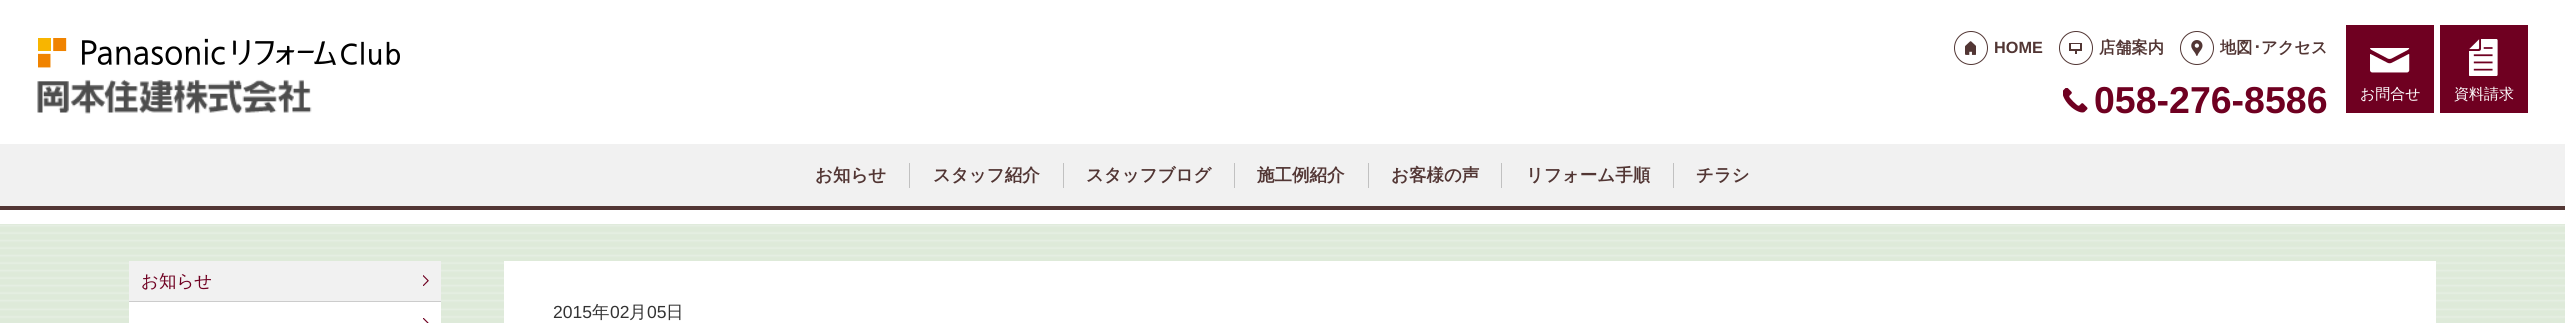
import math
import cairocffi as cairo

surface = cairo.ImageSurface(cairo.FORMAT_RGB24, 2565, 323)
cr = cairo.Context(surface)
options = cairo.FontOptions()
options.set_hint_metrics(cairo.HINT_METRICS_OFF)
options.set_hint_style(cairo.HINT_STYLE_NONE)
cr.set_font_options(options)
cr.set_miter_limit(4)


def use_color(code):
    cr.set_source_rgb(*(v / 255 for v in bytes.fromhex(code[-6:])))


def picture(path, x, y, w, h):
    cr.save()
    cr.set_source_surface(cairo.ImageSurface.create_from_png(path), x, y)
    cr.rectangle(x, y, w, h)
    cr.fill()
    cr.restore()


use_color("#ffffff")
cr.paint()
picture("img1.png", 0, 224, 2565, 99)
use_color("#523634")
cr.rectangle(0, 206, 2565, 4)
cr.fill()
picture("img2.png", 38, 38, 362, 30)
picture("img3.png", 37, 79, 275, 35)
picture("img4.png", 1965, 41, 11, 14)
cr.arc(1971, 48, 16.5, 0, 2 * math.pi)
cr.set_line_width(1)
cr.stroke()
cr.select_font_face("Liberation Sans", cairo.FONT_SLANT_NORMAL, cairo.FONT_WEIGHT_BOLD)
cr.set_font_size(16.25)
cr.move_to(1994, 53)
cr.show_text("HOME")
cr.save()
cr.rectangle(2069, 43, 14, 11)
cr.clip()
cr.rectangle(2070, 43, 11, 7)
cr.set_line_width(2)
cr.stroke()
cr.restore()
cr.rectangle(2075, 51, 2, 3)
cr.fill()
cr.arc(2076, 48, 16.5, 0, 2 * math.pi)
cr.stroke()
cr.select_font_face("WenQuanYi Zen Hei", cairo.FONT_SLANT_NORMAL, cairo.FONT_WEIGHT_BOLD)
cr.move_to(2099, 53)
cr.show_text("店舗案内")
picture("img5.png", 2191, 40, 12, 16)
cr.arc(2197, 48, 16.5, 0, 2 * math.pi)
cr.stroke()
cr.move_to(2220, 53)
cr.show_text("地図")
cr.select_font_face("IPAPGothic", cairo.FONT_SLANT_NORMAL, cairo.FONT_WEIGHT_BOLD)
cr.move_to(2253, 53)
cr.show_text("･")
cr.select_font_face("WenQuanYi Zen Hei", cairo.FONT_SLANT_NORMAL, cairo.FONT_WEIGHT_BOLD)
cr.move_to(2261, 53)
cr.show_text("アクセス")
picture("img6.png", 2063, 88, 25, 25)
cr.select_font_face("Liberation Sans", cairo.FONT_SLANT_NORMAL, cairo.FONT_WEIGHT_BOLD)
cr.set_font_size(37.5)
use_color("#6f0021")
cr.move_to(2094, 113)
cr.show_text("058-276-8586")
cr.rectangle(2346, 25, 88, 88)
cr.fill()
picture("img7.png", 2370, 48, 40, 25)
cr.select_font_face("WenQuanYi Zen Hei Medium")
cr.set_font_size(15)
use_color("#ffffff")
cr.move_to(2360, 99)
cr.show_text("お問合せ")
use_color("#6f0021")
cr.rectangle(2440, 25, 88, 88)
cr.fill()
picture("img8.png", 2469, 39, 29, 37)
use_color("#ffffff")
cr.move_to(2454, 99)
cr.show_text("資料請求")
use_color("#f1f1f1")
cr.rectangle(0, 144, 2565, 62)
cr.fill()
cr.select_font_face("WenQuanYi Zen Hei", cairo.FONT_SLANT_NORMAL, cairo.FONT_WEIGHT_BOLD)
cr.set_font_size(17.5)
use_color("#523634")
cr.move_to(815, 181)
cr.show_text("お知らせ")
use_color("#c1c1c1")
cr.rectangle(909, 163, 1, 25)
cr.fill()
use_color("#523634")
cr.move_to(933, 181)
cr.show_text("スタッフ紹介")
use_color("#c1c1c1")
cr.rectangle(1063, 163, 1, 25)
cr.fill()
use_color("#523634")
cr.move_to(1086, 181)
cr.show_text("スタッフブログ")
use_color("#c1c1c1")
cr.rectangle(1234, 163, 1, 25)
cr.fill()
use_color("#523634")
cr.move_to(1257, 181)
cr.show_text("施工例紹介")
use_color("#c1c1c1")
cr.rectangle(1368, 163, 1, 25)
cr.fill()
use_color("#523634")
cr.move_to(1391, 181)
cr.show_text("お客様の声")
use_color("#c1c1c1")
cr.rectangle(1501, 163, 1, 25)
cr.fill()
use_color("#523634")
cr.move_to(1526, 181)
cr.show_text("リフォーム手順")
use_color("#c1c1c1")
cr.rectangle(1673, 163, 1, 25)
cr.fill()
use_color("#523634")
cr.move_to(1696, 181)
cr.show_text("チラシ")
use_color("#ffffff")
cr.rectangle(129, 302, 312, 21)
cr.fill()
use_color("#f1f1f1")
cr.rectangle(129, 261, 312, 40)
cr.fill()
picture("img9.png", 423, 275, 6, 11)
cr.select_font_face("WenQuanYi Zen Hei Medium")
use_color("#6f0021")
cr.move_to(141, 287)
cr.show_text("お知らせ")
use_color("#cccccc")
cr.rectangle(129, 301, 312, 1)
cr.fill()
picture("img10.png", 423, 318, 6, 5)
use_color("#ffffff")
cr.rectangle(504, 261, 1932, 62)
cr.fill()
cr.select_font_face("Liberation Sans")
use_color("#333333")
cr.move_to(553, 318)
cr.show_text("2015")
cr.select_font_face("WenQuanYi Zen Hei Medium")
cr.move_to(592, 318)
cr.show_text("年")
cr.select_font_face("Liberation Sans")
cr.move_to(610, 318)
cr.show_text("02")
cr.select_font_face("WenQuanYi Zen Hei Medium")
cr.move_to(629, 318)
cr.show_text("月")
cr.select_font_face("Liberation Sans")
cr.move_to(647, 318)
cr.show_text("05")
cr.select_font_face("WenQuanYi Zen Hei Medium")
cr.move_to(666, 318)
cr.show_text("日")
surface.write_to_png("result.png")
